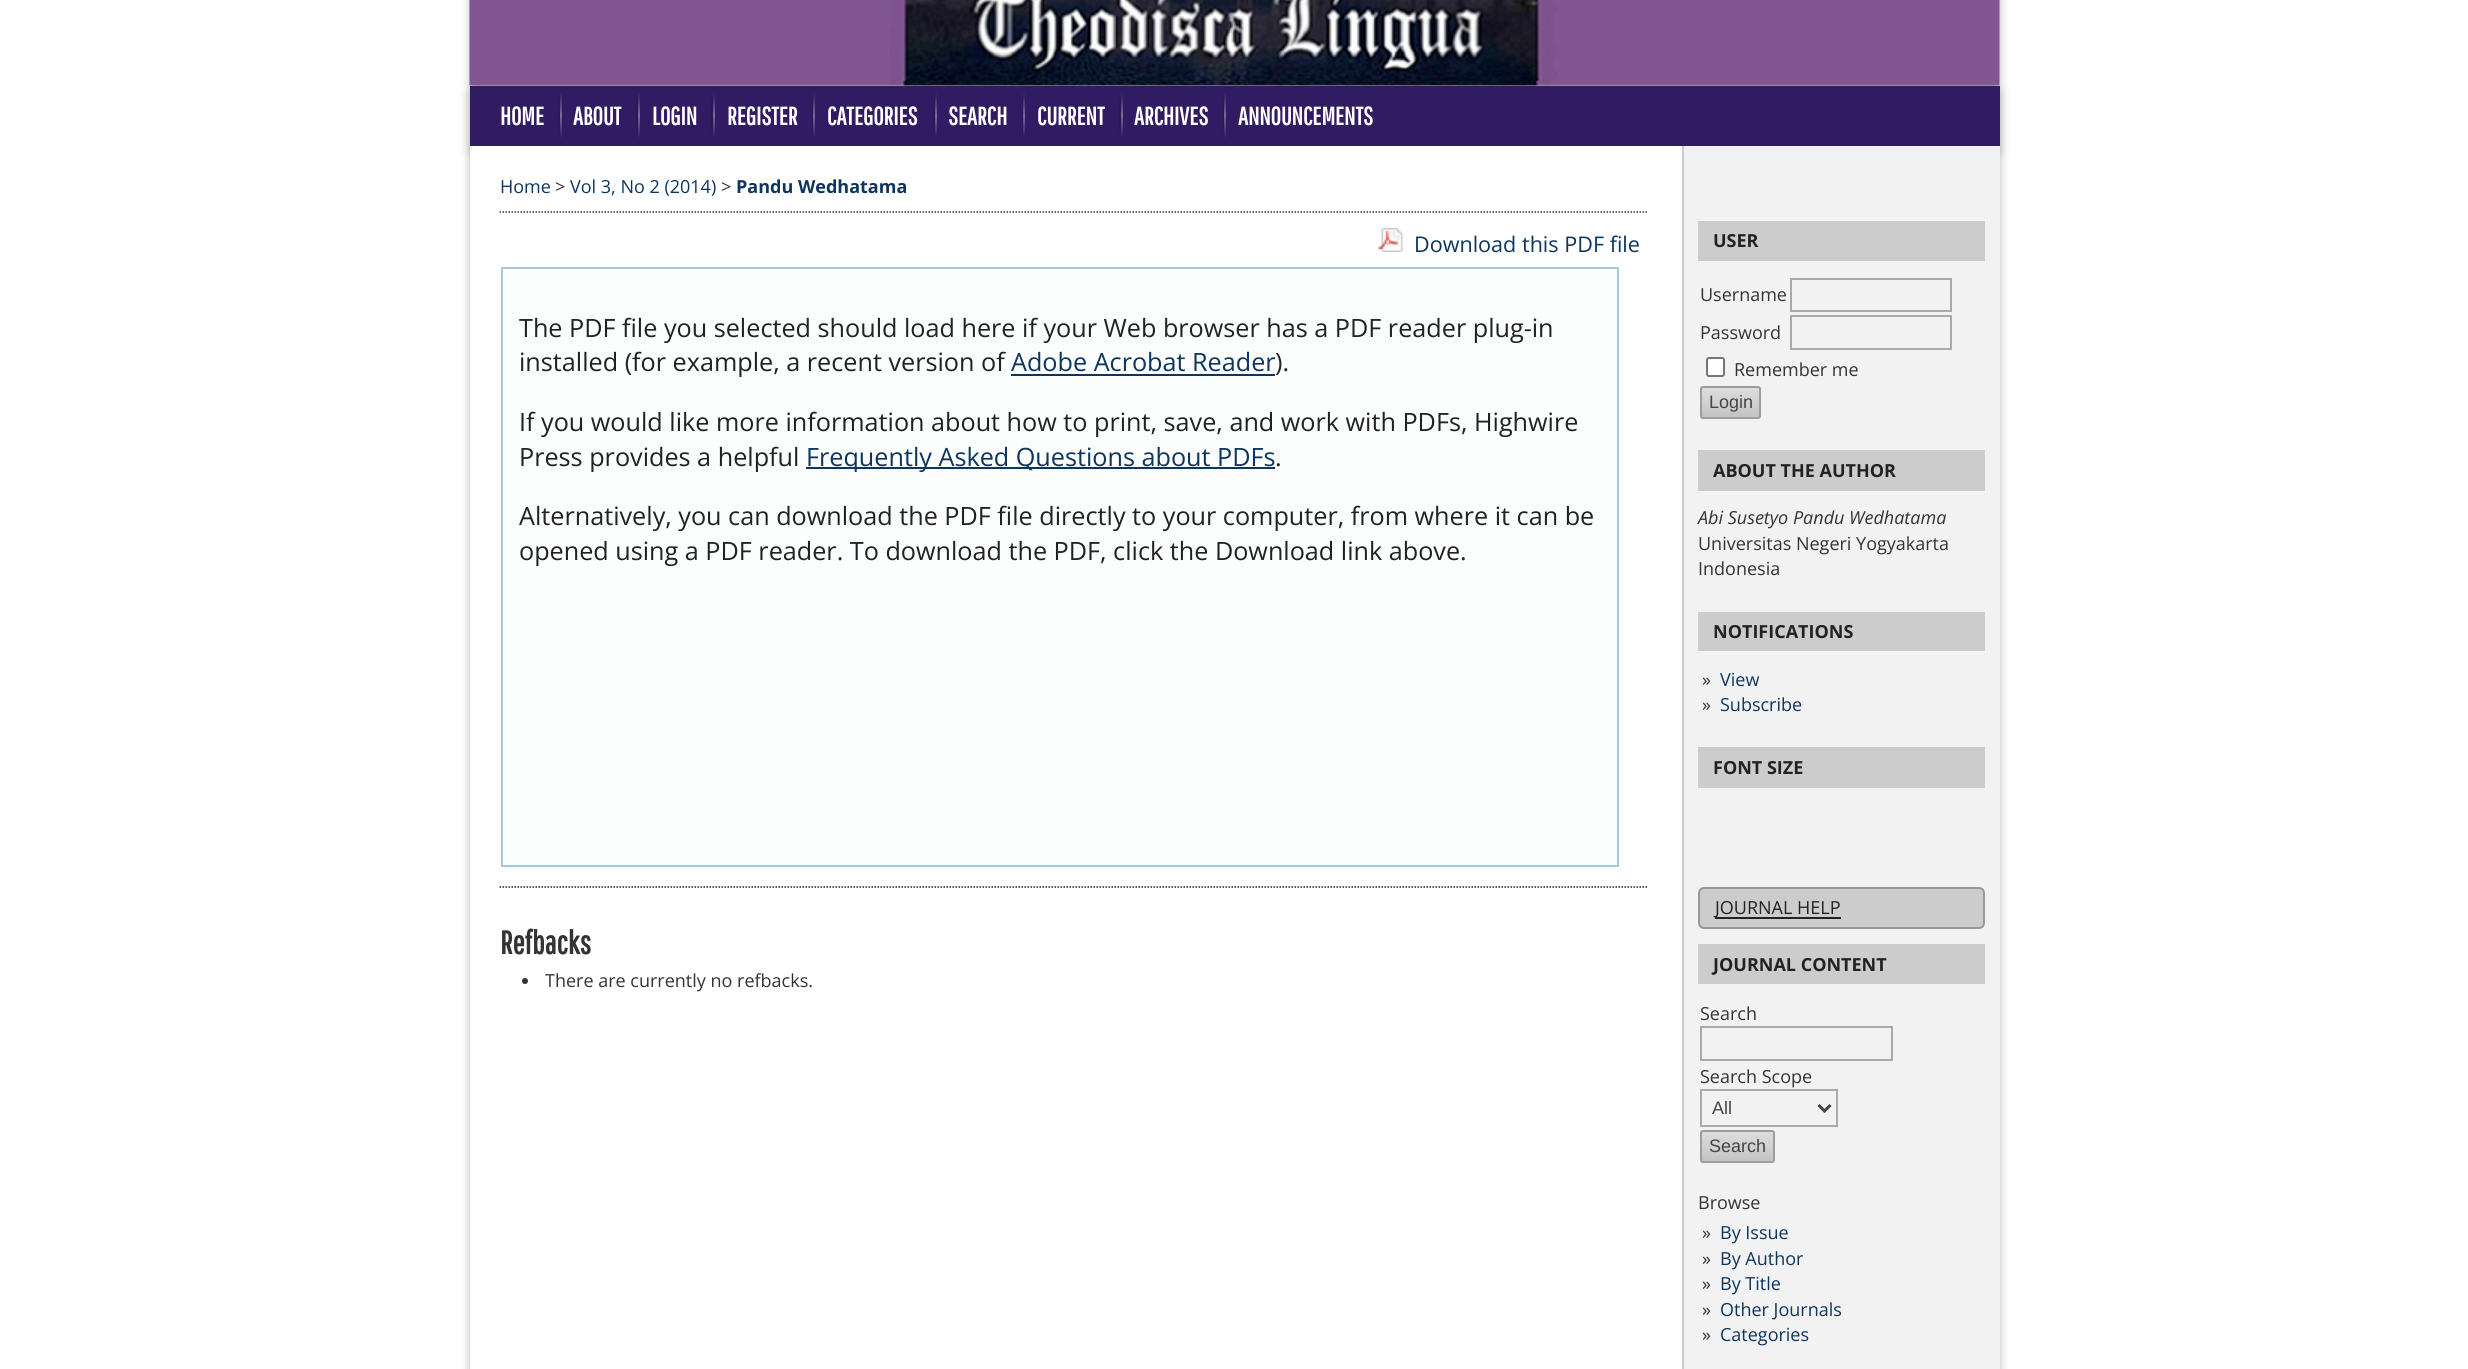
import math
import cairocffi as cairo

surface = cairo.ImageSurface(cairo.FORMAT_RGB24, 2468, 1369)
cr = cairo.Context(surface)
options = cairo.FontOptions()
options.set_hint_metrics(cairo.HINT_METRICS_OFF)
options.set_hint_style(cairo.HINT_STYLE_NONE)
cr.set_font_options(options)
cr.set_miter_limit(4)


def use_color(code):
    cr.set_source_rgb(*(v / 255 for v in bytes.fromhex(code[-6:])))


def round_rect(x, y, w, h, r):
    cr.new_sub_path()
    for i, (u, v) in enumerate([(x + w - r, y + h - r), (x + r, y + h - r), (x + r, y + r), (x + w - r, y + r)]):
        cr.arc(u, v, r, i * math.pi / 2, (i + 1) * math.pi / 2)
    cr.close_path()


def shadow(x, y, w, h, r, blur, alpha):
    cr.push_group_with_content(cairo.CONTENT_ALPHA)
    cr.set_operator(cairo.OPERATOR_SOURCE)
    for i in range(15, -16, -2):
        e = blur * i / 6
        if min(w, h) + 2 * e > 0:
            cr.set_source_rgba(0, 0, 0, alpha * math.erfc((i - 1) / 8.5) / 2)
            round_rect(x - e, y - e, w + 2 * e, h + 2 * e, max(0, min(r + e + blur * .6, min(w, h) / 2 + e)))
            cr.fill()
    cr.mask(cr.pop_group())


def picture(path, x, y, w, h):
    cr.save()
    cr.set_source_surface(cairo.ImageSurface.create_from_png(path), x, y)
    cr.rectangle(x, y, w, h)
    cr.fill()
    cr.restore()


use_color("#ffffff")
cr.paint()
picture("img1.png", 1086, 85, 297, 1)
use_color("#bbbbbb")
shadow(470, -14, 1530, 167, 0, 4.5, 1)
picture("img2.png", 469, 0, 1531, 86)
shadow(470, 93, 1530, 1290, 0, 4.5, 1)
use_color("#ffffff")
cr.rectangle(470, 146, 1212, 1223)
cr.fill()
use_color("#311b63")
cr.rectangle(470, 86, 1530, 60)
cr.fill()
cr.select_font_face("Pathway Gothic One", cairo.FONT_SLANT_NORMAL, cairo.FONT_WEIGHT_BOLD)
cr.set_font_size(25.2)
use_color("#ffffff")
cr.move_to(500, 125)
cr.show_text("HOME")
gradient = cairo.LinearGradient(559, 93, 559, 138)
gradient.add_color_stop_rgba(0, 0.192, 0.106, 0.388, 1)
gradient.add_color_stop_rgba(0.5, 0.165, 0.09, 0.329, 1)
gradient.add_color_stop_rgba(1, 0.192, 0.106, 0.388, 1)
cr.set_source(gradient)
cr.rectangle(558, 93, 2, 45)
cr.fill()
gradient = cairo.LinearGradient(560, 93, 560, 138)
gradient.add_color_stop_rgba(0, 0.192, 0.106, 0.388, 1)
gradient.add_color_stop_rgba(0.5, 0.475, 0.42, 0.604, 1)
gradient.add_color_stop_rgba(1, 0.192, 0.106, 0.388, 1)
cr.set_source(gradient)
cr.rectangle(560, 93, 2, 45)
cr.fill()
use_color("#ffffff")
cr.move_to(573, 125)
cr.show_text("ABOUT")
gradient = cairo.LinearGradient(637, 93, 637, 138)
gradient.add_color_stop_rgba(0, 0.192, 0.106, 0.388, 1)
gradient.add_color_stop_rgba(0.5, 0.165, 0.09, 0.329, 1)
gradient.add_color_stop_rgba(1, 0.192, 0.106, 0.388, 1)
cr.set_source(gradient)
cr.rectangle(636, 93, 2, 45)
cr.fill()
gradient = cairo.LinearGradient(638, 93, 638, 138)
gradient.add_color_stop_rgba(0, 0.192, 0.106, 0.388, 1)
gradient.add_color_stop_rgba(0.5, 0.475, 0.42, 0.604, 1)
gradient.add_color_stop_rgba(1, 0.192, 0.106, 0.388, 1)
cr.set_source(gradient)
cr.rectangle(638, 93, 2, 45)
cr.fill()
use_color("#ffffff")
cr.move_to(652, 125)
cr.show_text("LOGIN")
gradient = cairo.LinearGradient(712, 93, 712, 138)
gradient.add_color_stop_rgba(0, 0.192, 0.106, 0.388, 1)
gradient.add_color_stop_rgba(0.5, 0.165, 0.09, 0.329, 1)
gradient.add_color_stop_rgba(1, 0.192, 0.106, 0.388, 1)
cr.set_source(gradient)
cr.rectangle(711, 93, 2, 45)
cr.fill()
gradient = cairo.LinearGradient(713, 93, 713, 138)
gradient.add_color_stop_rgba(0, 0.192, 0.106, 0.388, 1)
gradient.add_color_stop_rgba(0.5, 0.475, 0.42, 0.604, 1)
gradient.add_color_stop_rgba(1, 0.192, 0.106, 0.388, 1)
cr.set_source(gradient)
cr.rectangle(713, 93, 2, 45)
cr.fill()
use_color("#ffffff")
cr.move_to(727, 125)
cr.show_text("REGISTER")
gradient = cairo.LinearGradient(812, 93, 812, 138)
gradient.add_color_stop_rgba(0, 0.192, 0.106, 0.388, 1)
gradient.add_color_stop_rgba(0.5, 0.165, 0.09, 0.329, 1)
gradient.add_color_stop_rgba(1, 0.192, 0.106, 0.388, 1)
cr.set_source(gradient)
cr.rectangle(812, 93, 2, 45)
cr.fill()
gradient = cairo.LinearGradient(814, 93, 814, 138)
gradient.add_color_stop_rgba(0, 1, 1, 1, 0)
gradient.add_color_stop_rgba(0.5, 1, 1, 1, 0.35)
gradient.add_color_stop_rgba(1, 1, 1, 1, 0)
cr.set_source(gradient)
cr.rectangle(813, 93, 2, 45)
cr.fill()
use_color("#ffffff")
cr.move_to(827, 125)
cr.show_text("CATEGORIES")
gradient = cairo.LinearGradient(934, 93, 934, 138)
gradient.add_color_stop_rgba(0, 0.192, 0.106, 0.388, 1)
gradient.add_color_stop_rgba(0.5, 0.165, 0.09, 0.329, 1)
gradient.add_color_stop_rgba(1, 0.192, 0.106, 0.388, 1)
cr.set_source(gradient)
cr.rectangle(933, 93, 2, 45)
cr.fill()
gradient = cairo.LinearGradient(935, 93, 935, 138)
gradient.add_color_stop_rgba(0, 0.192, 0.106, 0.388, 1)
gradient.add_color_stop_rgba(0.5, 0.475, 0.42, 0.604, 1)
gradient.add_color_stop_rgba(1, 0.192, 0.106, 0.388, 1)
cr.set_source(gradient)
cr.rectangle(935, 93, 2, 45)
cr.fill()
use_color("#ffffff")
cr.move_to(948, 125)
cr.show_text("SEARCH")
gradient = cairo.LinearGradient(1022, 93, 1022, 138)
gradient.add_color_stop_rgba(0, 0.192, 0.106, 0.388, 1)
gradient.add_color_stop_rgba(0.5, 0.165, 0.09, 0.329, 1)
gradient.add_color_stop_rgba(1, 0.192, 0.106, 0.388, 1)
cr.set_source(gradient)
cr.rectangle(1022, 93, 2, 45)
cr.fill()
gradient = cairo.LinearGradient(1024, 93, 1024, 138)
gradient.add_color_stop_rgba(0, 1, 1, 1, 0)
gradient.add_color_stop_rgba(0.5, 1, 1, 1, 0.35)
gradient.add_color_stop_rgba(1, 1, 1, 1, 0)
cr.set_source(gradient)
cr.rectangle(1023, 93, 2, 45)
cr.fill()
use_color("#ffffff")
cr.move_to(1037, 125)
cr.show_text("CURRENT")
gradient = cairo.LinearGradient(1120, 93, 1120, 138)
gradient.add_color_stop_rgba(0, 0.192, 0.106, 0.388, 1)
gradient.add_color_stop_rgba(0.5, 0.165, 0.09, 0.329, 1)
gradient.add_color_stop_rgba(1, 0.192, 0.106, 0.388, 1)
cr.set_source(gradient)
cr.rectangle(1119, 93, 2, 45)
cr.fill()
gradient = cairo.LinearGradient(1121, 93, 1121, 138)
gradient.add_color_stop_rgba(0, 0.192, 0.106, 0.388, 1)
gradient.add_color_stop_rgba(0.5, 0.475, 0.42, 0.604, 1)
gradient.add_color_stop_rgba(1, 0.192, 0.106, 0.388, 1)
cr.set_source(gradient)
cr.rectangle(1121, 93, 2, 45)
cr.fill()
use_color("#ffffff")
cr.move_to(1134, 125)
cr.show_text("ARCHIVES")
gradient = cairo.LinearGradient(1223, 93, 1223, 138)
gradient.add_color_stop_rgba(0, 0.192, 0.106, 0.388, 1)
gradient.add_color_stop_rgba(0.5, 0.165, 0.09, 0.329, 1)
gradient.add_color_stop_rgba(1, 0.192, 0.106, 0.388, 1)
cr.set_source(gradient)
cr.rectangle(1223, 93, 2, 45)
cr.fill()
gradient = cairo.LinearGradient(1225, 93, 1225, 138)
gradient.add_color_stop_rgba(0, 1, 1, 1, 0)
gradient.add_color_stop_rgba(0.5, 1, 1, 1, 0.35)
gradient.add_color_stop_rgba(1, 1, 1, 1, 0)
cr.set_source(gradient)
cr.rectangle(1224, 93, 2, 45)
cr.fill()
use_color("#ffffff")
cr.move_to(1238, 125)
cr.show_text("ANNOUNCEMENTS")
cr.new_path()
cr.move_to(499.5, 212)
cr.line_to(1647, 212)
use_color("#333333")
cr.set_line_width(1.5)
cr.set_dash([1.5, 1.5])
cr.stroke()
cr.select_font_face("Open Sans")
cr.set_font_size(18)
use_color("#0d355e")
cr.move_to(500, 193)
cr.show_text("Home")
use_color("#333333")
cr.move_to(555, 193)
cr.show_text(">")
use_color("#0d355e")
cr.move_to(570, 193)
cr.show_text("Vol 3, No 2 (2014)")
use_color("#333333")
cr.move_to(721, 193)
cr.show_text(">")
cr.select_font_face("Open Sans", cairo.FONT_SLANT_NORMAL, cairo.FONT_WEIGHT_BOLD)
use_color("#0d355e")
cr.move_to(736, 193)
cr.show_text("Pandu Wedhatama")
picture("img3.png", 1378, 228, 25, 24)
cr.select_font_face("Open Sans")
cr.set_font_size(21.6)
cr.move_to(1414, 252)
cr.show_text("Download this PDF file")
use_color("#fcfdfd")
cr.rectangle(502, 268, 1116, 598)
cr.fill_preserve()
use_color("#a6c9e2")
cr.set_line_width(2)
cr.set_dash([])
cr.stroke()
cr.set_font_size(25.2)
use_color("#222222")
cr.move_to(519, 337)
cr.show_text("The PDF file you selected should load here if your Web browser has a PDF reader plug-in")
cr.move_to(519, 371)
cr.show_text("installed (for example, a recent version of")
use_color("#0d355e")
cr.move_to(1011, 371)
cr.show_text("Adobe Acrobat Reader")
cr.rectangle(1011, 374, 264, 2)
cr.fill()
use_color("#222222")
cr.move_to(1275, 371)
cr.show_text(").")
cr.move_to(519, 431)
cr.show_text("If you would like more information about how to print, save, and work with PDFs, Highwire")
cr.move_to(519, 466)
cr.show_text("Press provides a helpful")
use_color("#0d355e")
cr.rectangle(806, 467, 469, 2)
cr.fill()
cr.move_to(806, 466)
cr.show_text("Frequently Asked Questions about PDFs")
use_color("#222222")
cr.move_to(1275, 466)
cr.show_text(".")
cr.move_to(519, 525)
cr.show_text("Alternatively, you can download the PDF file directly to your computer, from where it can be")
cr.move_to(519, 560)
cr.show_text("opened using a PDF reader. To download the PDF, click the Download link above.")
cr.new_path()
cr.move_to(499.5, 887)
cr.line_to(1647, 887)
cr.set_line_width(1.5)
cr.set_dash([1.5, 1.5])
cr.stroke()
cr.select_font_face("Pathway Gothic One", cairo.FONT_SLANT_NORMAL, cairo.FONT_WEIGHT_BOLD)
cr.set_font_size(32.5)
use_color("#333333")
cr.move_to(500, 954)
cr.show_text("Refbacks")
cr.new_path()
cr.arc(525, 981, 3, 0, 2 * math.pi)
cr.fill()
cr.select_font_face("Open Sans")
cr.set_font_size(18)
cr.move_to(545, 987)
cr.show_text("There are currently no refbacks.")
use_color("#f2f2f2")
cr.rectangle(1684, 146, 316, 1223)
cr.fill()
use_color("#cccccc")
cr.rectangle(1682, 146, 2, 1223)
cr.fill()
cr.rectangle(1698, 221, 287, 40)
cr.fill()
cr.select_font_face("Open Sans", cairo.FONT_SLANT_NORMAL, cairo.FONT_WEIGHT_BOLD)
use_color("#222222")
cr.move_to(1713, 247)
cr.show_text("USER")
cr.select_font_face("Open Sans")
use_color("#333333")
cr.move_to(1700, 301)
cr.show_text("Username")
cr.rectangle(1791, 279, 160, 32)
use_color("#aaaaaa")
cr.set_line_width(2)
cr.set_dash([])
cr.stroke()
use_color("#333333")
cr.move_to(1700, 339)
cr.show_text("Password")
cr.rectangle(1791, 316, 160, 33)
use_color("#aaaaaa")
cr.stroke()
use_color("#ffffff")
round_rect(1707, 358, 17, 18, 2)
cr.fill_preserve()
use_color("#767676")
cr.stroke()
use_color("#333333")
cr.move_to(1734, 376)
cr.show_text("Remember me")
cr.save()
round_rect(1700, 386, 61, 33, 3)
cr.clip()
gradient = cairo.LinearGradient(1730, 387, 1730, 417)
gradient.add_color_stop_rgba(0, 0.867, 0.867, 0.867, 1)
gradient.add_color_stop_rgba(1, 0.769, 0.769, 0.769, 1)
cr.set_source(gradient)
cr.rectangle(1700, 387, 61, 30)
cr.fill()
cr.restore()
round_rect(1701, 387, 59, 31, 2)
use_color("#9d9d9d")
cr.stroke()
cr.select_font_face("Liberation Sans")
use_color("#444444")
cr.move_to(1709, 408)
cr.show_text("Login")
use_color("#cccccc")
cr.rectangle(1698, 450, 287, 41)
cr.fill()
cr.select_font_face("Open Sans", cairo.FONT_SLANT_NORMAL, cairo.FONT_WEIGHT_BOLD)
use_color("#222222")
cr.move_to(1713, 477)
cr.show_text("ABOUT THE AUTHOR")
cr.select_font_face("Open Sans", cairo.FONT_SLANT_ITALIC)
use_color("#333333")
cr.move_to(1698, 524)
cr.show_text("Abi Susetyo Pandu Wedhatama")
cr.select_font_face("Open Sans")
cr.move_to(1698, 550)
cr.show_text("Universitas Negeri Yogyakarta")
cr.move_to(1698, 575)
cr.show_text("Indonesia")
use_color("#cccccc")
cr.rectangle(1698, 612, 287, 39)
cr.fill()
cr.select_font_face("Open Sans", cairo.FONT_SLANT_NORMAL, cairo.FONT_WEIGHT_BOLD)
use_color("#222222")
cr.move_to(1713, 638)
cr.show_text("NOTIFICATIONS")
cr.select_font_face("Open Sans")
use_color("#333333")
cr.move_to(1702, 686)
cr.show_text("»")
use_color("#0d355e")
cr.move_to(1720, 686)
cr.show_text("View")
use_color("#333333")
cr.move_to(1702, 711)
cr.show_text("»")
use_color("#0d355e")
cr.move_to(1720, 711)
cr.show_text("Subscribe")
use_color("#cccccc")
cr.rectangle(1698, 747, 287, 41)
cr.fill()
cr.select_font_face("Open Sans", cairo.FONT_SLANT_NORMAL, cairo.FONT_WEIGHT_BOLD)
use_color("#222222")
cr.move_to(1713, 774)
cr.show_text("FONT SIZE")
use_color("#cccccc")
round_rect(1699, 888, 285, 40, 5)
cr.fill_preserve()
use_color("#999999")
cr.stroke()
use_color("#222222")
cr.rectangle(1715, 917, 126, 2)
cr.fill()
cr.select_font_face("Open Sans")
cr.move_to(1715, 914)
cr.show_text("JOURNAL HELP")
use_color("#cccccc")
cr.rectangle(1698, 944, 287, 40)
cr.fill()
cr.select_font_face("Open Sans", cairo.FONT_SLANT_NORMAL, cairo.FONT_WEIGHT_BOLD)
use_color("#222222")
cr.move_to(1713, 971)
cr.show_text("JOURNAL CONTENT")
cr.select_font_face("Open Sans")
use_color("#333333")
cr.move_to(1700, 1020)
cr.show_text("Search")
cr.rectangle(1701, 1027, 191, 33)
use_color("#aaaaaa")
cr.stroke()
use_color("#333333")
cr.move_to(1700, 1083)
cr.show_text("Search Scope")
cr.rectangle(1701, 1090, 136, 36)
use_color("#aaaaaa")
cr.stroke()
cr.new_path()
cr.move_to(1818.5, 1105)
cr.line_to(1824.5, 1111)
cr.line_to(1830.5, 1105)
use_color("#444444")
cr.set_line_width(3)
cr.stroke()
cr.select_font_face("Liberation Sans")
cr.move_to(1712, 1114)
cr.show_text("All")
cr.save()
round_rect(1700, 1130, 75, 33, 3)
cr.clip()
gradient = cairo.LinearGradient(1737, 1131, 1737, 1161)
gradient.add_color_stop_rgba(0, 0.867, 0.867, 0.867, 1)
gradient.add_color_stop_rgba(1, 0.769, 0.769, 0.769, 1)
cr.set_source(gradient)
cr.rectangle(1700, 1131, 75, 30)
cr.fill()
cr.restore()
round_rect(1701, 1131, 73, 31, 2)
use_color("#9d9d9d")
cr.set_line_width(2)
cr.stroke()
use_color("#444444")
cr.move_to(1709, 1152)
cr.show_text("Search")
cr.select_font_face("Open Sans")
use_color("#333333")
cr.move_to(1698, 1209)
cr.show_text("Browse")
cr.move_to(1702, 1239)
cr.show_text("»")
use_color("#0d355e")
cr.move_to(1720, 1239)
cr.show_text("By Issue")
use_color("#333333")
cr.move_to(1702, 1265)
cr.show_text("»")
use_color("#0d355e")
cr.move_to(1720, 1265)
cr.show_text("By Author")
use_color("#333333")
cr.move_to(1702, 1290)
cr.show_text("»")
use_color("#0d355e")
cr.move_to(1720, 1290)
cr.show_text("By Title")
use_color("#333333")
cr.move_to(1702, 1316)
cr.show_text("»")
use_color("#0d355e")
cr.move_to(1720, 1316)
cr.show_text("Other Journals")
use_color("#333333")
cr.move_to(1702, 1341)
cr.show_text("»")
use_color("#0d355e")
cr.move_to(1720, 1341)
cr.show_text("Categories")
surface.write_to_png("result.png")
